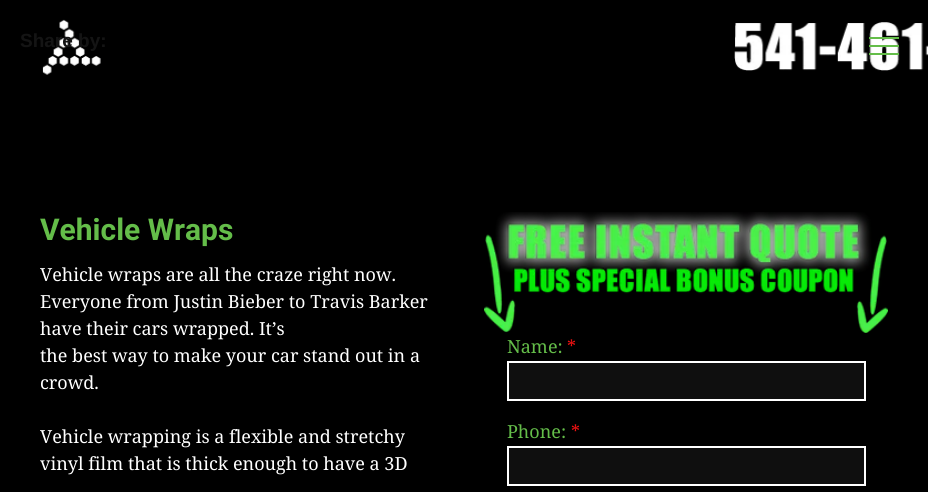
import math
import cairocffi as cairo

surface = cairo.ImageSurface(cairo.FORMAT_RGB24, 928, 492)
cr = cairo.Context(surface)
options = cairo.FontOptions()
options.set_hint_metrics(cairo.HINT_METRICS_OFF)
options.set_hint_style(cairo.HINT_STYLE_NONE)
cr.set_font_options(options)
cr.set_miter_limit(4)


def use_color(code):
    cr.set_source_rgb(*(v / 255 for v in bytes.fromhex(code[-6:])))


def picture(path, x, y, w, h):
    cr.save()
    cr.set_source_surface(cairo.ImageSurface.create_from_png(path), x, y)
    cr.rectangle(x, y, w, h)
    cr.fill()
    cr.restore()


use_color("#000000")
cr.paint()
picture("img1.png", 42, 19, 59, 56)
cr.select_font_face("Liberation Sans", cairo.FONT_SLANT_NORMAL, cairo.FONT_WEIGHT_BOLD)
cr.set_font_size(19)
use_color("#141414")
cr.move_to(20, 47)
cr.show_text("Share by:")
picture("img2.png", 734, 22, 194, 49)
use_color("#64bd49")
cr.rectangle(869, 37, 30, 2)
cr.fill()
cr.rectangle(869, 45, 30, 2)
cr.fill()
cr.rectangle(869, 53, 30, 2)
cr.fill()
cr.select_font_face("Roboto", cairo.FONT_SLANT_NORMAL, cairo.FONT_WEIGHT_BOLD)
cr.set_font_size(30)
cr.move_to(40, 240)
cr.show_text("Vehicle Wraps")
cr.select_font_face("Noto Serif")
cr.set_font_size(18)
use_color("#ffffff")
cr.move_to(40, 281)
cr.show_text("Vehicle wraps are all the craze right now.")
cr.move_to(40, 308)
cr.show_text("Everyone from Justin Bieber to Travis Barker")
cr.move_to(40, 335)
cr.show_text("have their cars wrapped. It’s")
cr.move_to(40, 362)
cr.show_text("the best way to make your car stand out in a")
cr.move_to(40, 389)
cr.show_text("crowd.")
cr.move_to(40, 443)
cr.show_text("Vehicle wrapping is a flexible and stretchy")
cr.move_to(40, 470)
cr.show_text("vinyl film that is thick enough to have a 3D")
picture("img3.png", 484, 212, 404, 121)
use_color("#64bd49")
cr.move_to(507, 353)
cr.show_text("Name:")
use_color("#f11111")
cr.move_to(567, 353)
cr.show_text("*")
use_color("#0f0f0f")
cr.rectangle(508, 362, 357, 38)
cr.fill_preserve()
use_color("#ffffff")
cr.stroke()
use_color("#64bd49")
cr.move_to(507, 438)
cr.show_text("Phone:")
use_color("#f11111")
cr.move_to(571, 438)
cr.show_text("*")
use_color("#0f0f0f")
cr.rectangle(508, 447, 357, 38)
cr.fill_preserve()
use_color("#ffffff")
cr.stroke()
surface.write_to_png("result.png")
